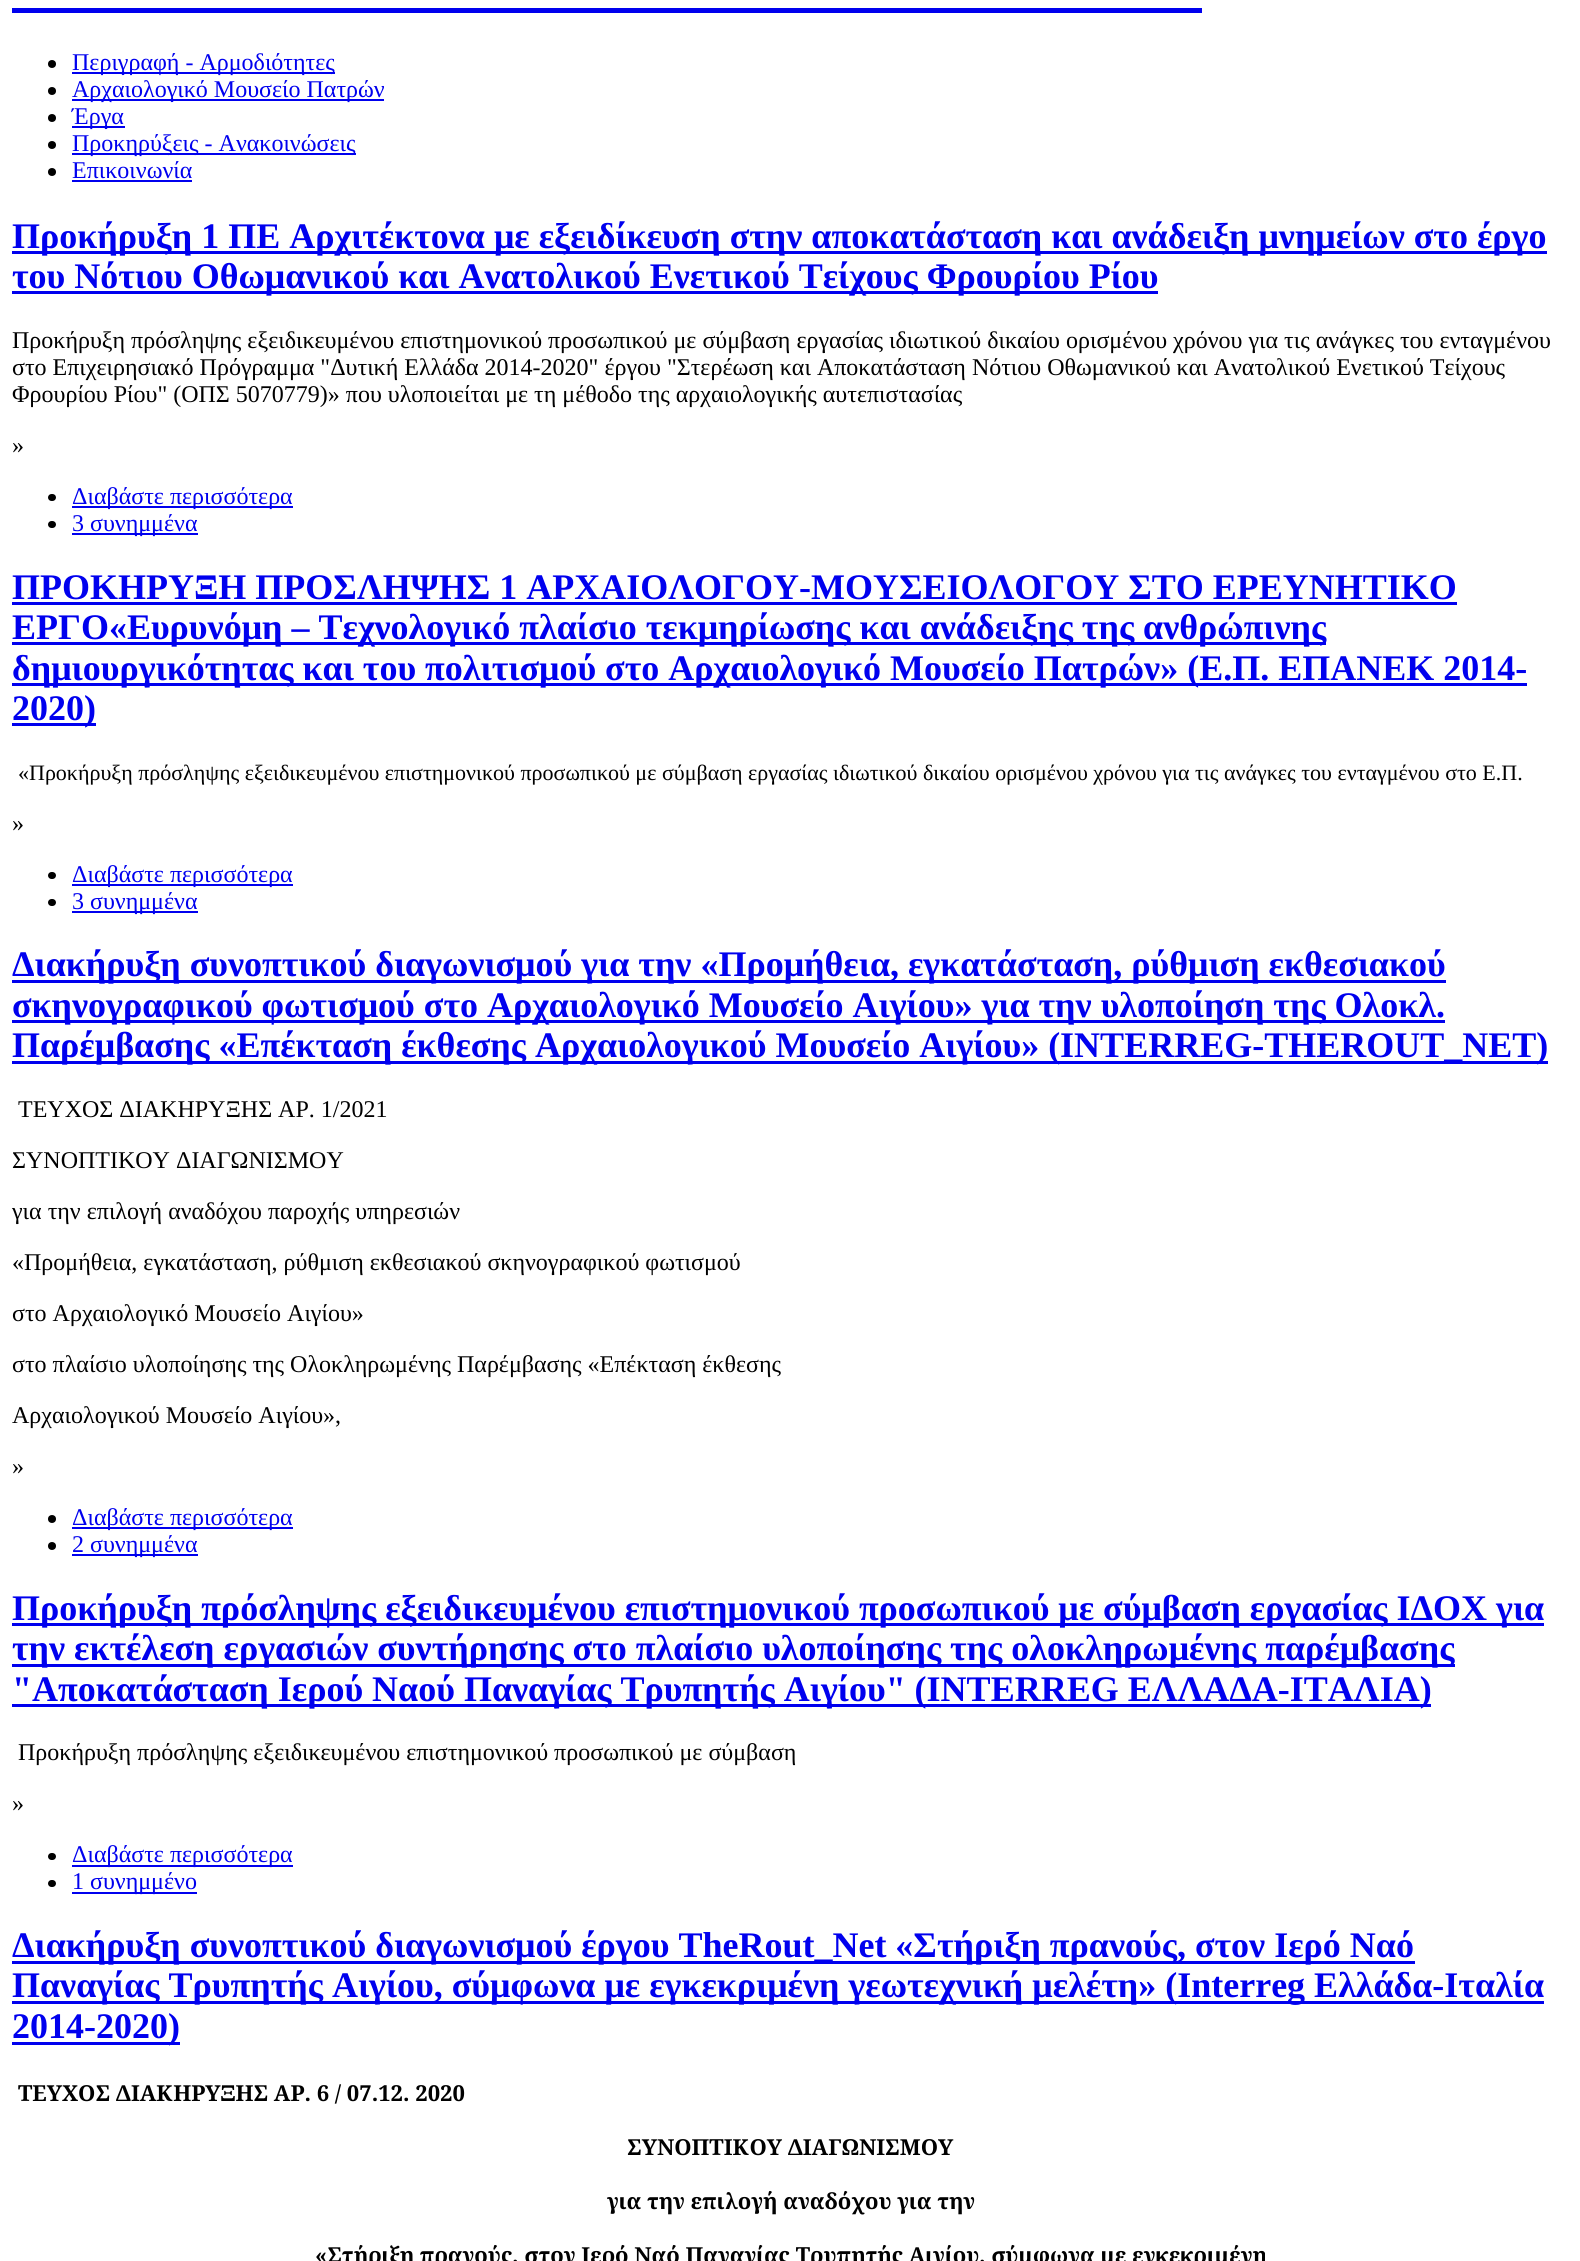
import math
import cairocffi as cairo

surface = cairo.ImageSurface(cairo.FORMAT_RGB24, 1580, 2261)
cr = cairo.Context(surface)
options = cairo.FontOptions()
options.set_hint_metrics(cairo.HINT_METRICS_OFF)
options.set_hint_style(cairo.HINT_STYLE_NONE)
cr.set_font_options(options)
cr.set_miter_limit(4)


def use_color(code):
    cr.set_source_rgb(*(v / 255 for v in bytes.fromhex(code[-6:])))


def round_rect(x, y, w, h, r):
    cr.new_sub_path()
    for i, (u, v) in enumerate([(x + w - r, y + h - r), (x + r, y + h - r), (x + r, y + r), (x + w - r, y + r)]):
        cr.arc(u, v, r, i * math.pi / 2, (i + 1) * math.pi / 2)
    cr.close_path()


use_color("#ffffff")
cr.paint()
use_color("#0000ee")
cr.rectangle(12, 8, 1190, 5)
cr.fill()
use_color("#000000")
cr.arc(52, 64, 4, 0, 2 * math.pi)
cr.fill()
use_color("#0000ee")
cr.rectangle(72, 72, 263, 2)
cr.fill()
cr.select_font_face("Liberation Serif")
cr.set_font_size(24)
cr.move_to(72, 70)
cr.show_text("Περιγραφή - Αρμοδιότητες")
use_color("#000000")
cr.new_path()
cr.arc(52, 91, 4, 0, 2 * math.pi)
cr.fill()
use_color("#0000ee")
cr.rectangle(72, 99, 312, 2)
cr.fill()
cr.move_to(72, 97)
cr.show_text("Αρχαιολογικό Μουσείο Πατρών")
use_color("#000000")
cr.new_path()
cr.arc(52, 118, 4, 0, 2 * math.pi)
cr.fill()
use_color("#0000ee")
cr.rectangle(72, 126, 53, 2)
cr.fill()
cr.move_to(72, 124)
cr.show_text("Έργα")
use_color("#000000")
cr.new_path()
cr.arc(52, 145, 4, 0, 2 * math.pi)
cr.fill()
use_color("#0000ee")
cr.rectangle(72, 153, 284, 2)
cr.fill()
cr.move_to(72, 151)
cr.show_text("Προκηρύξεις - Ανακοινώσεις")
use_color("#000000")
cr.new_path()
cr.arc(52, 172, 4, 0, 2 * math.pi)
cr.fill()
use_color("#0000ee")
cr.move_to(72, 178)
cr.show_text("Επικοινωνία")
cr.rectangle(72, 180, 120, 2)
cr.fill()
cr.rectangle(12, 251, 1535, 3)
cr.fill()
cr.select_font_face("Liberation Serif", cairo.FONT_SLANT_NORMAL, cairo.FONT_WEIGHT_BOLD)
cr.set_font_size(36)
cr.move_to(12, 248)
cr.show_text("Προκήρυξη 1 ΠΕ Αρχιτέκτονα με εξειδίκευση στην αποκατάσταση και ανάδειξη μνημείων στο έργο")
cr.rectangle(12, 291, 1146, 3)
cr.fill()
cr.move_to(12, 288)
cr.show_text("του Νότιου Οθωμανικού και Ανατολικού Ενετικού Τείχους Φρουρίου Ρίου")
cr.select_font_face("Liberation Serif")
cr.set_font_size(24)
use_color("#000000")
cr.move_to(12, 348)
cr.show_text("Προκήρυξη πρόσληψης εξειδικευμένου επιστημονικού προσωπικού με σύμβαση εργασίας ιδιωτικού δικαίου ορισμένου χρόνου για τις ανάγκες του ενταγμένου")
cr.move_to(12, 375)
cr.show_text("στο Επιχειρησιακό Πρόγραμμα \"Δυτική Ελλάδα 2014-2020\" έργου \"Στερέωση και Αποκατάσταση Νότιου Οθωμανικού και Ανατολικού Ενετικού Τείχους")
cr.move_to(12, 402)
cr.show_text("Φρουρίου Ρίου\" (ΟΠΣ 5070779)» που υλοποιείται με τη μέθοδο της αρχαιολογικής αυτεπιστασίας")
cr.move_to(12, 453)
cr.show_text("»")
round_rect(48, 494, 8, 7, 3.5)
cr.fill()
use_color("#0000ee")
cr.rectangle(72, 506, 221, 2)
cr.fill()
cr.move_to(72, 504)
cr.show_text("Διαβάστε περισσότερα")
use_color("#000000")
round_rect(48, 521, 8, 7, 3.5)
cr.fill()
use_color("#0000ee")
cr.rectangle(72, 533, 126, 2)
cr.fill()
cr.move_to(72, 531)
cr.show_text("3 συνημμένα")
cr.select_font_face("Liberation Serif", cairo.FONT_SLANT_NORMAL, cairo.FONT_WEIGHT_BOLD)
cr.set_font_size(36)
cr.move_to(12, 599)
cr.show_text("ΠΡΟΚΗΡΥΞΗ ΠΡΟΣΛΗΨΗΣ 1 ΑΡΧΑΙΟΛΟΓΟΥ-ΜΟΥΣΕΙΟΛΟΓΟΥ ΣΤΟ ΕΡΕΥΝΗΤΙΚΟ")
cr.rectangle(12, 602, 1445, 3)
cr.fill()
cr.rectangle(12, 642, 1314, 3)
cr.fill()
cr.move_to(12, 639)
cr.show_text("ΕΡΓΟ«Ευρυνόμη – Τεχνολογικό πλαίσιο τεκμηρίωσης και ανάδειξης της ανθρώπινης")
cr.rectangle(12, 683, 1515, 3)
cr.fill()
cr.move_to(12, 680)
cr.show_text("δημιουργικότητας και του πολιτισμού στο Αρχαιολογικό Μουσείο Πατρών» (Ε.Π. ΕΠΑΝΕΚ 2014-")
cr.rectangle(12, 723, 84, 3)
cr.fill()
cr.move_to(12, 720)
cr.show_text("2020)")
cr.select_font_face("Liberation Serif")
cr.set_font_size(22)
use_color("#000000")
cr.move_to(18, 780)
cr.show_text("«Προκήρυξη πρόσληψης εξειδικευμένου επιστημονικού προσωπικού με σύμβαση εργασίας ιδιωτικού δικαίου ορισμένου χρόνου για τις ανάγκες του ενταγμένου στο Ε.Π.")
cr.set_font_size(24)
cr.move_to(12, 831)
cr.show_text("»")
round_rect(48, 872, 8, 7, 3.5)
cr.fill()
use_color("#0000ee")
cr.rectangle(72, 884, 221, 2)
cr.fill()
cr.move_to(72, 882)
cr.show_text("Διαβάστε περισσότερα")
use_color("#000000")
round_rect(48, 899, 8, 7, 3.5)
cr.fill()
use_color("#0000ee")
cr.rectangle(72, 911, 126, 2)
cr.fill()
cr.move_to(72, 909)
cr.show_text("3 συνημμένα")
cr.rectangle(12, 980, 1434, 3)
cr.fill()
cr.select_font_face("Liberation Serif", cairo.FONT_SLANT_NORMAL, cairo.FONT_WEIGHT_BOLD)
cr.set_font_size(36)
cr.move_to(12, 976)
cr.show_text("Διακήρυξη συνoπτικού διαγωνισμού για την «Προμήθεια, εγκατάσταση, ρύθμιση εκθεσιακού")
cr.rectangle(12, 1020, 1433, 3)
cr.fill()
cr.move_to(12, 1017)
cr.show_text("σκηνογραφικού φωτισμού στο Αρχαιολογικό Μουσείο Αιγίου» για την υλοποίηση της Ολοκλ.")
cr.rectangle(12, 1061, 1536, 3)
cr.fill()
cr.move_to(12, 1057)
cr.show_text("Παρέμβασης «Επέκταση έκθεσης Αρχαιολογικού Μουσείο Αιγίου» (INTERREG-THEROUT_ΝΕΤ)")
cr.select_font_face("Liberation Serif")
cr.set_font_size(24)
use_color("#000000")
cr.move_to(18, 1117)
cr.show_text("ΤΕΥΧΟΣ ΔΙΑΚΗΡΥΞΗΣ ΑΡ. 1/2021")
cr.move_to(12, 1168)
cr.show_text("ΣΥΝΟΠΤΙΚΟΥ ΔΙΑΓΩΝΙΣΜΟΥ")
cr.move_to(12, 1219)
cr.show_text("για την επιλογή αναδόχου παροχής υπηρεσιών")
cr.move_to(12, 1270)
cr.show_text("«Προμήθεια, εγκατάσταση, ρύθμιση εκθεσιακού σκηνογραφικού φωτισμού")
cr.move_to(12, 1321)
cr.show_text("στο Αρχαιολογικό Μουσείο Αιγίου»")
cr.move_to(12, 1372)
cr.show_text("στο πλαίσιο υλοποίησης της Ολοκληρωμένης Παρέμβασης «Επέκταση έκθεσης")
cr.move_to(12, 1423)
cr.show_text("Αρχαιολογικού Μουσείο Αιγίου»,")
cr.move_to(12, 1474)
cr.show_text("»")
cr.new_path()
cr.arc(52, 1519, 4, 0, 2 * math.pi)
cr.fill()
use_color("#0000ee")
cr.rectangle(72, 1527, 221, 2)
cr.fill()
cr.move_to(72, 1525)
cr.show_text("Διαβάστε περισσότερα")
use_color("#000000")
cr.new_path()
cr.arc(52, 1546, 4, 0, 2 * math.pi)
cr.fill()
use_color("#0000ee")
cr.rectangle(72, 1554, 126, 2)
cr.fill()
cr.move_to(72, 1552)
cr.show_text("2 συνημμένα")
cr.rectangle(12, 1623, 1532, 3)
cr.fill()
cr.select_font_face("Liberation Serif", cairo.FONT_SLANT_NORMAL, cairo.FONT_WEIGHT_BOLD)
cr.set_font_size(36)
cr.move_to(12, 1620)
cr.show_text("Προκήρυξη πρόσληψης εξειδικευμένου επιστημονικού προσωπικού με σύμβαση εργασίας ΙΔΟΧ για")
cr.rectangle(12, 1664, 1443, 3)
cr.fill()
cr.move_to(12, 1660)
cr.show_text("την εκτέλεση εργασιών συντήρησης στο πλαίσιο υλοποίησης της ολοκληρωμένης παρέμβασης")
cr.rectangle(12, 1704, 1419, 3)
cr.fill()
cr.move_to(12, 1701)
cr.show_text("\"Αποκατάσταση Ιερού Ναού Παναγίας Τρυπητής Αιγίου\" (INTERREG ΕΛΛΑΔΑ-ΙΤΑΛΙΑ)")
cr.select_font_face("Liberation Serif")
cr.set_font_size(24)
use_color("#000000")
cr.move_to(18, 1760)
cr.show_text("Προκήρυξη πρόσληψης εξειδικευμένου επιστημονικού προσωπικού με σύμβαση")
cr.move_to(12, 1811)
cr.show_text("»")
round_rect(48, 1853, 8, 7, 3.5)
cr.fill()
use_color("#0000ee")
cr.rectangle(72, 1865, 221, 2)
cr.fill()
cr.move_to(72, 1862)
cr.show_text("Διαβάστε περισσότερα")
use_color("#000000")
round_rect(48, 1880, 8, 7, 3.5)
cr.fill()
use_color("#0000ee")
cr.rectangle(72, 1892, 125, 2)
cr.fill()
cr.move_to(72, 1889)
cr.show_text("1 συνημμένο")
cr.rectangle(12, 1961, 1403, 3)
cr.fill()
cr.select_font_face("Liberation Serif", cairo.FONT_SLANT_NORMAL, cairo.FONT_WEIGHT_BOLD)
cr.set_font_size(36)
cr.move_to(12, 1957)
cr.show_text("Διακήρυξη συνοπτικού διαγωνισμού έργου TheRout_Net «Στήριξη πρανούς, στον Ιερό Ναό")
cr.rectangle(12, 2001, 1532, 3)
cr.fill()
cr.move_to(12, 1997)
cr.show_text("Παναγίας Τρυπητής Αιγίου, σύμφωνα με εγκεκριμένη γεωτεχνική μελέτη» (Interreg Ελλάδα-Ιταλία")
cr.rectangle(12, 2042, 168, 3)
cr.fill()
cr.move_to(12, 2038)
cr.show_text("2014-2020)")
cr.select_font_face("Noto Serif", cairo.FONT_SLANT_NORMAL, cairo.FONT_WEIGHT_BOLD)
cr.set_font_size(22)
use_color("#000000")
cr.move_to(18, 2101)
cr.show_text("ΤΕΥΧΟΣ ΔΙΑΚΗΡΥΞΗΣ ΑΡ. 6 / 07.12. 2020")
cr.move_to(627, 2155)
cr.show_text("ΣΥΝΟΠΤΙΚΟΥ ΔΙΑΓΩΝΙΣΜΟΥ")
cr.move_to(607, 2209)
cr.show_text("για την επιλογή αναδόχου για την")
cr.move_to(315, 2263)
cr.show_text("«Στήριξη πρανούς, στον Ιερό Ναό Παναγίας Τρυπητής Αιγίου, σύμφωνα με εγκεκριμένη")
surface.write_to_png("result.png")
